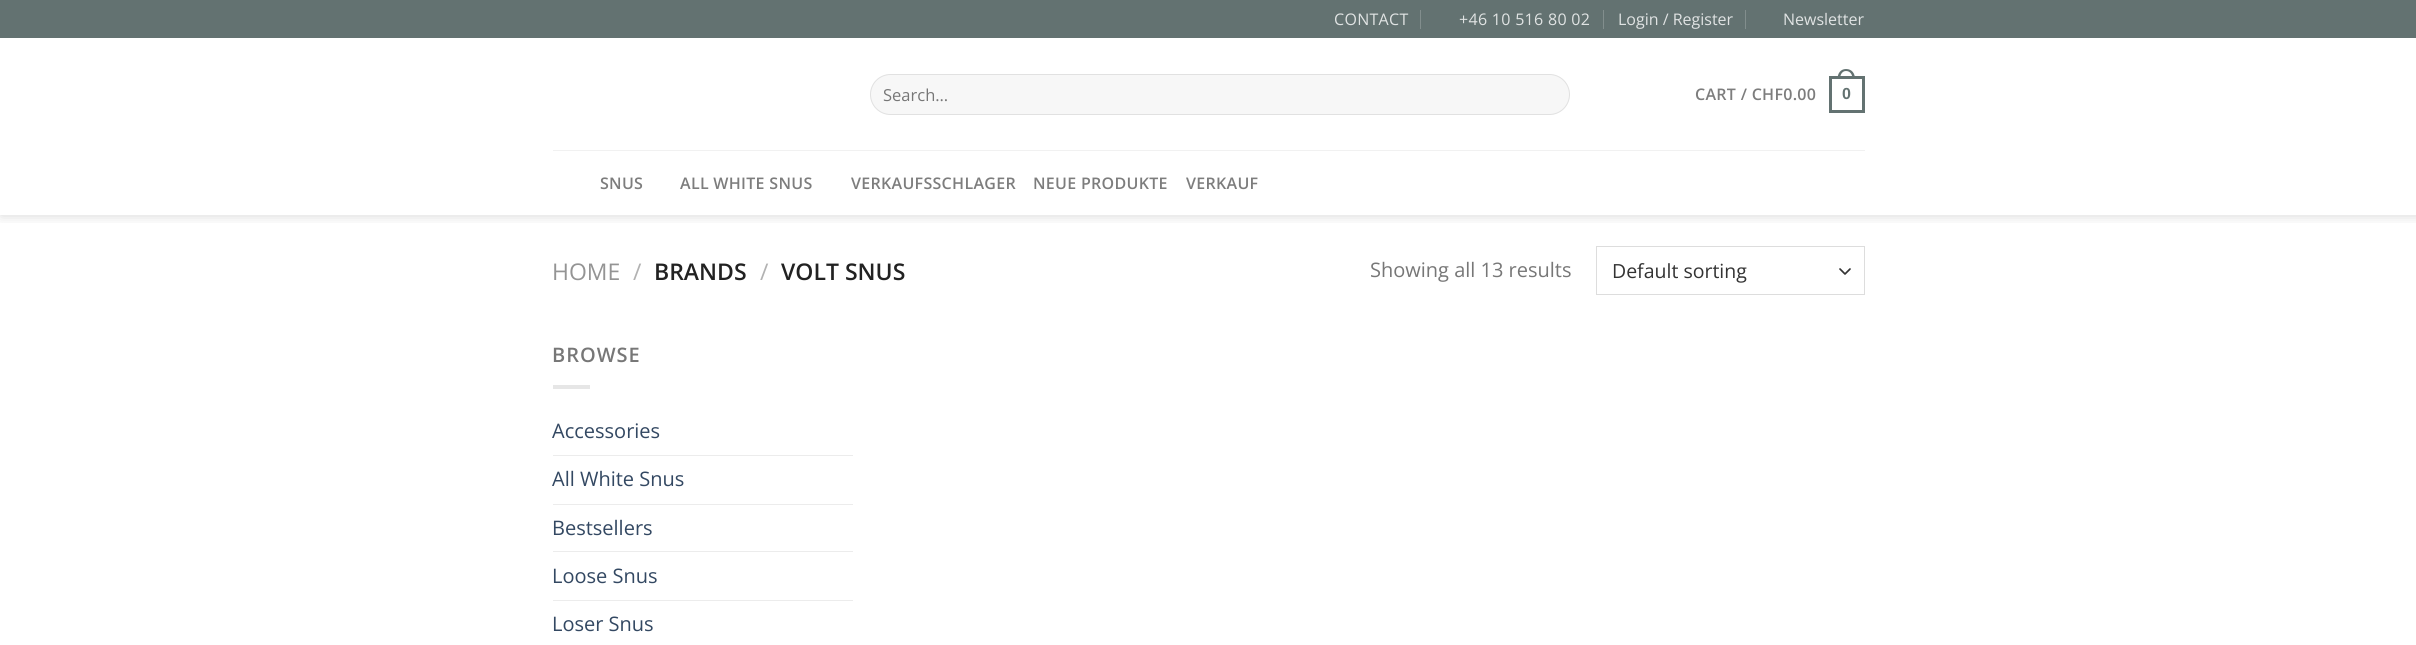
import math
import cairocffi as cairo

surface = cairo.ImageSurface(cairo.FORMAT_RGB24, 2416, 645)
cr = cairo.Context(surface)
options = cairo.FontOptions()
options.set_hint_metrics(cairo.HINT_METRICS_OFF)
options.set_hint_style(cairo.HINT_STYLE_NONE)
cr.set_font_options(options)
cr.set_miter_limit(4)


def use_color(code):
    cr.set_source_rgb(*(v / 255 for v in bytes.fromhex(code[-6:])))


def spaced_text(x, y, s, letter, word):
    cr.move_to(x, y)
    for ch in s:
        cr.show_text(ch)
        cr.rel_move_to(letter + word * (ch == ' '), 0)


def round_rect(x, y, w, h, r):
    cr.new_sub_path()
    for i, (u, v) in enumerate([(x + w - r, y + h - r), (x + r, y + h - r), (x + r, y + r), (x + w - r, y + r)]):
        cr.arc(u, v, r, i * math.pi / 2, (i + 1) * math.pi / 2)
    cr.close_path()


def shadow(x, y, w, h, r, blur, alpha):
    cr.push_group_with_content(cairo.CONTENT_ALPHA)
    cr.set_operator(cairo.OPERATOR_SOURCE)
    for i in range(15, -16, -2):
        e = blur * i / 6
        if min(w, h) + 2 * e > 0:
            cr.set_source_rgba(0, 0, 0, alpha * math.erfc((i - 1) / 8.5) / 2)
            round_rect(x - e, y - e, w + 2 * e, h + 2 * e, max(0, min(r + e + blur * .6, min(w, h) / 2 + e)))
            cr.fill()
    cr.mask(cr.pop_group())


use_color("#ffffff")
cr.paint()
cr.save()
cr.rectangle(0, 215, 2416, 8)
cr.clip()
use_color("#000000")
shadow(1, 1, 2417, 215, 0, 6, 0.15)
cr.restore()
use_color("#637271")
cr.rectangle(0, 0, 2416, 38)
cr.fill()
cr.select_font_face("Open Sans")
cr.set_font_size(16)
use_color("#e0e3e3")
spaced_text(1334, 25, "CONTACT", 0.3, 0)
use_color("#828e8d")
cr.rectangle(1420, 10, 1, 19)
cr.fill()
use_color("#e0e3e3")
spaced_text(1459, 25, "+46 10 516 80 02", 0.3, 0)
use_color("#828e8d")
cr.rectangle(1603, 10, 1, 19)
cr.fill()
use_color("#e0e3e3")
cr.move_to(1618, 25)
cr.show_text("Login / Register")
use_color("#828e8d")
cr.rectangle(1745, 10, 1, 19)
cr.fill()
use_color("#e0e3e3")
cr.move_to(1783, 25)
cr.show_text("Newsletter")
use_color("#f7f7f7")
round_rect(870, 74, 700, 41, 20.5)
cr.fill()
round_rect(870.5, 74.5, 699, 40, 20)
cr.set_source_rgba(0, 0, 0, 0.09)
cr.set_line_width(1)
cr.stroke()
cr.set_font_size(16.5)
use_color("#777777")
cr.move_to(883, 101)
cr.show_text("Search…")
cr.select_font_face("Open Sans SemiBold")
cr.set_font_size(16)
use_color("#7d7d7d")
spaced_text(1695, 100, "CART / CHF0.00", 0.3, 0)
cr.rectangle(1830.5, 77.5, 33, 34)
use_color("#637271")
cr.set_line_width(3)
cr.stroke()
cr.set_fill_rule(cairo.FILL_RULE_EVEN_ODD)
cr.new_path()
cr.move_to(1846, 69)
cr.curve_to(1852, 69, 1855, 73.5, 1855, 79)
cr.line_to(1837.5, 79)
cr.curve_to(1837.5, 73.5, 1840.5, 69, 1846, 69)
cr.close_path()
cr.move_to(1846, 71)
cr.curve_to(1850.5, 71, 1852.5, 75, 1852.5, 79)
cr.line_to(1840, 79)
cr.curve_to(1840, 75, 1842, 71, 1846, 71)
cr.close_path()
cr.fill()
cr.select_font_face("Liberation Sans", cairo.FONT_SLANT_NORMAL, cairo.FONT_WEIGHT_BOLD)
spaced_text(1842, 99, "0", 0.3, 0)
use_color("#f1f1f1")
cr.rectangle(553, 150, 1312, 1)
cr.fill()
cr.select_font_face("Open Sans SemiBold")
use_color("#7d7d7d")
spaced_text(600, 189, "SNUS", 0.3, 0)
spaced_text(680, 189, "ALL WHITE SNUS", 0.3, 0)
spaced_text(851, 189, "VERKAUFSSCHLAGER", 0.3, 0)
spaced_text(1033, 189, "NEUE PRODUKTE", 0.3, 0)
spaced_text(1186, 189, "VERKAUF", 0.3, 0)
cr.select_font_face("Open Sans")
cr.set_font_size(23)
use_color("#949494")
cr.move_to(552, 280)
cr.show_text("HOME")
use_color("#b2b2b2")
cr.move_to(633, 280)
cr.show_text("/")
cr.select_font_face("Open Sans SemiBold")
use_color("#222222")
cr.move_to(654, 280)
cr.show_text("BRANDS")
cr.select_font_face("Open Sans")
use_color("#b2b2b2")
cr.move_to(760, 280)
cr.show_text("/")
cr.select_font_face("Open Sans SemiBold")
use_color("#222222")
cr.move_to(781, 280)
cr.show_text("VOLT SNUS")
cr.select_font_face("Open Sans")
cr.set_font_size(20)
use_color("#777777")
cr.move_to(1370, 277)
cr.show_text("Showing all 13 results")
cr.new_path()
cr.move_to(1840, 269)
cr.line_to(1845, 274)
cr.line_to(1850, 269)
use_color("#333333")
cr.set_line_width(1.7)
cr.set_line_cap(cairo.LINE_CAP_ROUND)
cr.set_line_join(cairo.LINE_JOIN_ROUND)
cr.stroke()
cr.rectangle(1596.5, 246.5, 268, 48)
use_color("#dddddd")
cr.set_line_width(1)
cr.set_line_cap(cairo.LINE_CAP_BUTT)
cr.set_line_join(cairo.LINE_JOIN_MITER)
cr.stroke()
cr.set_font_size(19.5)
use_color("#333333")
cr.move_to(1612, 278)
cr.show_text("Default sorting")
cr.select_font_face("Open Sans SemiBold")
cr.set_font_size(20)
use_color("#777777")
spaced_text(552, 362, "BROWSE", 1, 0)
use_color("#e6e6e6")
cr.rectangle(553, 385, 37, 4)
cr.fill()
cr.select_font_face("Open Sans")
use_color("#334862")
cr.move_to(552, 438)
cr.show_text("Accessories")
use_color("#ececec")
cr.rectangle(553, 455, 300, 1)
cr.fill()
use_color("#334862")
cr.move_to(552, 486)
cr.show_text("All White Snus")
use_color("#ececec")
cr.rectangle(553, 504, 300, 1)
cr.fill()
use_color("#334862")
cr.move_to(552, 535)
cr.show_text("Bestsellers")
use_color("#ececec")
cr.rectangle(553, 551, 300, 1)
cr.fill()
use_color("#334862")
cr.move_to(552, 583)
cr.show_text("Loose Snus")
use_color("#ececec")
cr.rectangle(553, 600, 300, 1)
cr.fill()
use_color("#334862")
cr.move_to(552, 631)
cr.show_text("Loser Snus")
surface.write_to_png("result.png")
